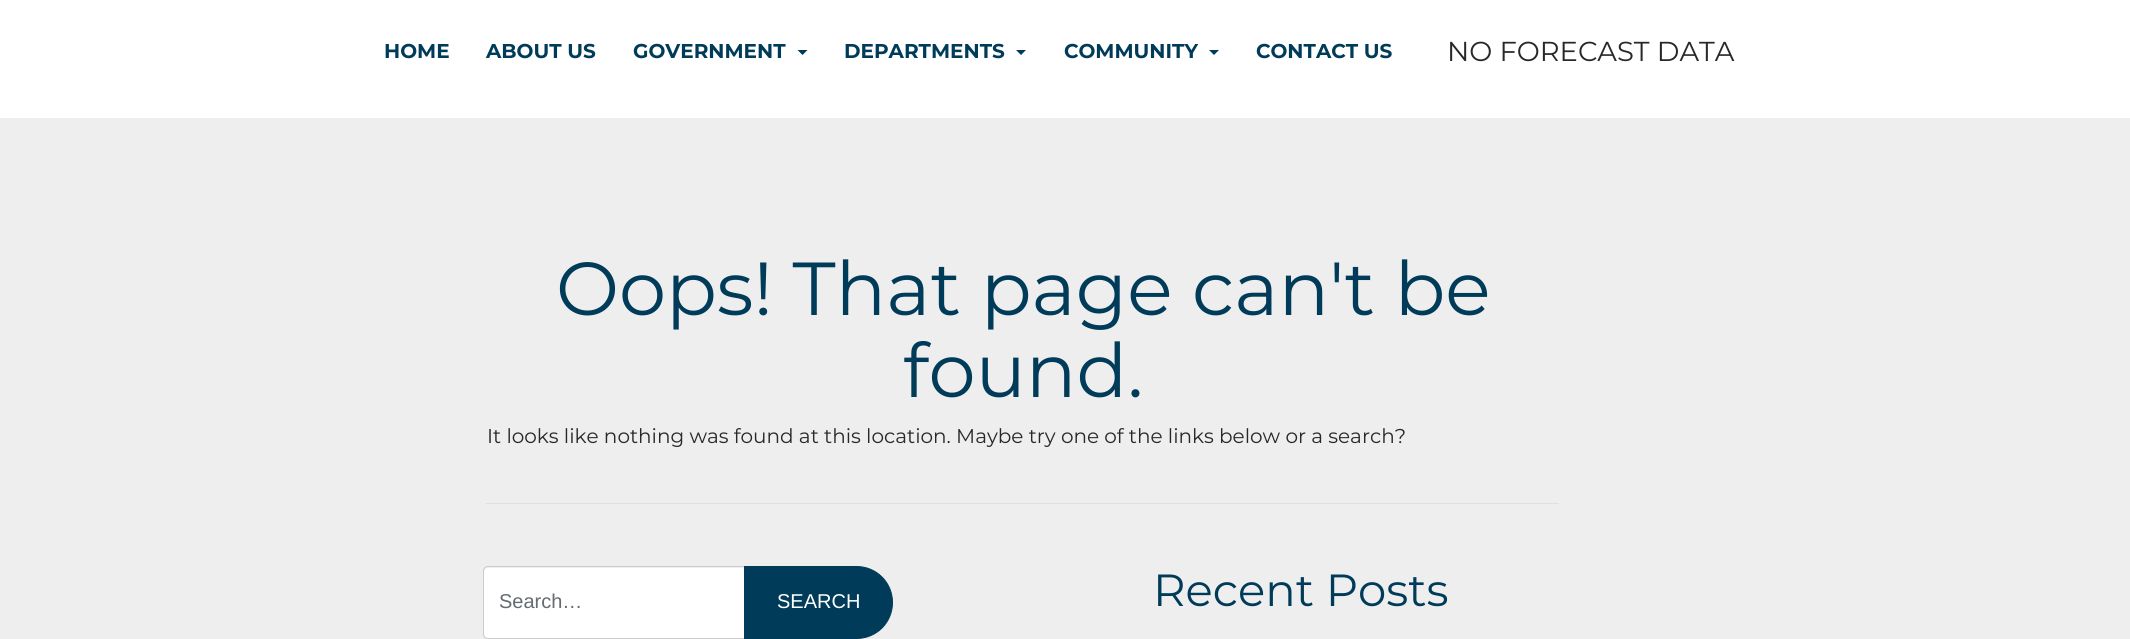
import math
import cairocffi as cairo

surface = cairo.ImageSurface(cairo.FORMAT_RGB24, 2130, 639)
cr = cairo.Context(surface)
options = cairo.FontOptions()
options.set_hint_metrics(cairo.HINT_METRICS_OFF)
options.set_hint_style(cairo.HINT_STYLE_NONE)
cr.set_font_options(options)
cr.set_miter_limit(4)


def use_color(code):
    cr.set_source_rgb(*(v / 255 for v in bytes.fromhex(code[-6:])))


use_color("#ffffff")
cr.paint()
cr.select_font_face("Montserrat", cairo.FONT_SLANT_NORMAL, cairo.FONT_WEIGHT_BOLD)
cr.set_font_size(20)
use_color("#003b59")
cr.move_to(384, 58)
cr.show_text("HOME")
cr.move_to(486, 58)
cr.show_text("ABOUT US")
cr.move_to(633, 58)
cr.show_text("GOVERNMENT")
cr.new_path()
cr.move_to(797.5, 50)
cr.line_to(807.5, 50)
cr.line_to(802.5, 55)
cr.close_path()
cr.fill()
cr.move_to(844, 58)
cr.show_text("DEPARTMENTS")
cr.new_path()
cr.move_to(1016, 50)
cr.line_to(1026, 50)
cr.line_to(1021, 55)
cr.close_path()
cr.fill()
cr.move_to(1064, 58)
cr.show_text("COMMUNITY")
cr.new_path()
cr.move_to(1209, 50)
cr.line_to(1219, 50)
cr.line_to(1214, 55)
cr.close_path()
cr.fill()
cr.move_to(1256, 58)
cr.show_text("CONTACT US")
cr.select_font_face("Montserrat")
cr.set_font_size(27.4)
use_color("#282828")
cr.move_to(1447, 61)
cr.show_text("NO FORECAST DATA")
use_color("#eeeeee")
cr.rectangle(0, 118, 2130, 521)
cr.fill()
use_color("#e0e0e0")
cr.rectangle(486, 503, 1073, 1)
cr.fill()
cr.set_font_size(75)
use_color("#003b59")
cr.move_to(556, 315)
cr.show_text("Oops! That page can't be")
cr.move_to(903, 397)
cr.show_text("found.")
cr.set_font_size(20)
use_color("#282828")
cr.move_to(487, 443)
cr.show_text("It looks like nothing was found at this location. Maybe try one of the links below or a search?")
use_color("#ffffff")
cr.new_path()
cr.move_to(488, 568)
cr.line_to(744, 568)
cr.line_to(744, 638)
cr.line_to(488, 638)
cr.curve_to(486, 638, 484, 636, 484, 634)
cr.line_to(484, 572)
cr.curve_to(484, 570, 486, 568, 488, 568)
cr.close_path()
cr.fill()
cr.new_path()
cr.move_to(488, 566.5)
cr.line_to(744.5, 566.5)
cr.line_to(744.5, 638.5)
cr.line_to(488, 638.5)
cr.curve_to(485.5, 638.5, 483.5, 636.5, 483.5, 634)
cr.line_to(483.5, 571)
cr.curve_to(483.5, 568.5, 485.5, 566.5, 488, 566.5)
cr.close_path()
cr.set_source_rgba(0, 0, 0, 0.15)
cr.set_line_width(1)
cr.stroke()
cr.select_font_face("Liberation Sans")
use_color("#636c72")
cr.move_to(499, 608)
cr.show_text("Search…")
use_color("#003b59")
cr.new_path()
cr.move_to(744.5, 566.5)
cr.line_to(856.5, 566.5)
cr.curve_to(876.5, 566.5, 892.5, 582.5, 892.5, 602.5)
cr.curve_to(892.5, 622.5, 876.5, 638.5, 856.5, 638.5)
cr.line_to(744.5, 638.5)
cr.close_path()
cr.fill_preserve()
cr.stroke()
use_color("#ffffff")
cr.move_to(777, 608)
cr.show_text("SEARCH")
cr.select_font_face("Montserrat")
cr.set_font_size(45)
use_color("#003b59")
cr.move_to(1153, 606)
cr.show_text("Recent Posts")
surface.write_to_png("result.png")
